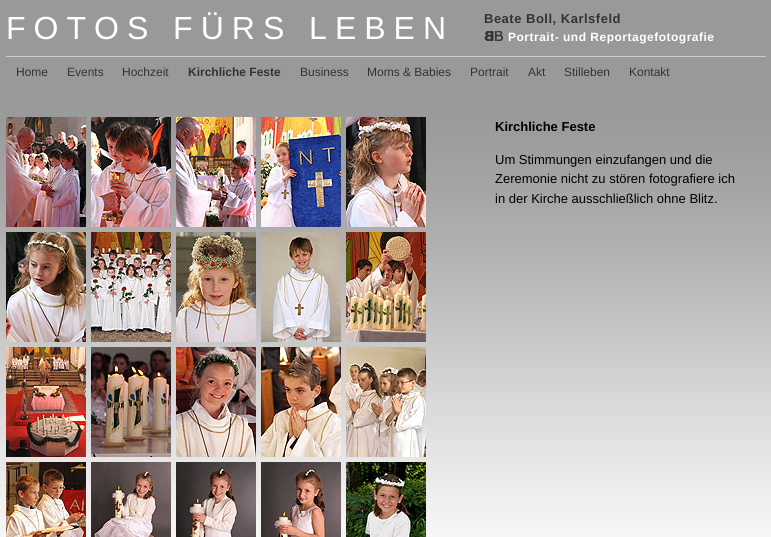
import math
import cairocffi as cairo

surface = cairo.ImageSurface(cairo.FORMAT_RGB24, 771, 537)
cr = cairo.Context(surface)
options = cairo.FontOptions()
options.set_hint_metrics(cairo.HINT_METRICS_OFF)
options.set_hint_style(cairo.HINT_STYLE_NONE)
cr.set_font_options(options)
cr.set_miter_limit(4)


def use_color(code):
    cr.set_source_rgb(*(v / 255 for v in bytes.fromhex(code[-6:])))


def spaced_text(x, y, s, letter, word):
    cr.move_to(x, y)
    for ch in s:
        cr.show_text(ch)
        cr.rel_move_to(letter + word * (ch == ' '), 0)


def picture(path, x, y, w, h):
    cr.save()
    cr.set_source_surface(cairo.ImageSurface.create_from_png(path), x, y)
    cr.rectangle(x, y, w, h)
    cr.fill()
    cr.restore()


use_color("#ffffff")
cr.paint()
picture("img1.png", 0, 0, 771, 537)
use_color("#cccccc")
cr.rectangle(6, 56, 760, 1)
cr.fill()
cr.select_font_face("Liberation Sans")
cr.set_font_size(32)
use_color("#ffffff")
spaced_text(6, 39, "FOTOS FÜRS LEBEN", 8, 0)
cr.select_font_face("Liberation Sans", cairo.FONT_SLANT_NORMAL, cairo.FONT_WEIGHT_BOLD)
cr.set_font_size(13)
use_color("#333333")
spaced_text(484, 23, "Beate Boll, Karlsfeld", 0.5, 0)
picture("img2.png", 484, 31, 19, 10)
cr.set_font_size(12)
use_color("#ffffff")
spaced_text(508, 41, "Portrait- und Reportagefotografie", 0.5, 0)
cr.select_font_face("Liberation Sans")
use_color("#333333")
cr.move_to(16, 76)
cr.show_text("Home")
cr.move_to(67, 76)
cr.show_text("Events")
cr.move_to(122, 76)
cr.show_text("Hochzeit")
cr.select_font_face("Liberation Sans", cairo.FONT_SLANT_NORMAL, cairo.FONT_WEIGHT_BOLD)
cr.move_to(188, 76)
cr.show_text("Kirchliche Feste")
cr.select_font_face("Liberation Sans")
cr.move_to(300, 76)
cr.show_text("Business")
cr.move_to(367, 76)
cr.show_text("Moms & Babies")
cr.move_to(470, 76)
cr.show_text("Portrait")
cr.move_to(528, 76)
cr.show_text("Akt")
cr.move_to(564, 76)
cr.show_text("Stilleben")
cr.move_to(629, 76)
cr.show_text("Kontakt")
picture("img3.png", 6, 117, 80, 110)
picture("img4.png", 91, 117, 80, 110)
picture("img5.png", 176, 117, 80, 110)
picture("img6.png", 261, 117, 80, 110)
picture("img7.png", 346, 117, 80, 110)
picture("img8.png", 6, 232, 80, 110)
picture("img9.png", 91, 232, 80, 110)
picture("img10.png", 176, 232, 80, 110)
picture("img11.png", 261, 232, 80, 110)
picture("img12.png", 346, 232, 80, 110)
picture("img13.png", 6, 347, 80, 110)
picture("img14.png", 91, 347, 80, 110)
picture("img15.png", 176, 347, 80, 110)
picture("img16.png", 261, 347, 80, 110)
picture("img17.png", 346, 347, 80, 110)
picture("img18.png", 6, 462, 80, 75)
picture("img19.png", 91, 462, 80, 75)
picture("img20.png", 176, 462, 80, 75)
picture("img21.png", 261, 462, 80, 75)
picture("img22.png", 346, 462, 80, 75)
cr.select_font_face("Liberation Sans", cairo.FONT_SLANT_NORMAL, cairo.FONT_WEIGHT_BOLD)
cr.set_font_size(13)
use_color("#000000")
cr.move_to(495, 131)
cr.show_text("Kirchliche Feste")
cr.select_font_face("Liberation Sans")
cr.move_to(495, 164)
cr.show_text("Um Stimmungen einzufangen und die")
cr.move_to(495, 183)
cr.show_text("Zeremonie nicht zu stören fotografiere ich")
cr.move_to(495, 203)
cr.show_text("in der Kirche ausschließlich ohne Blitz.")
surface.write_to_png("result.png")
